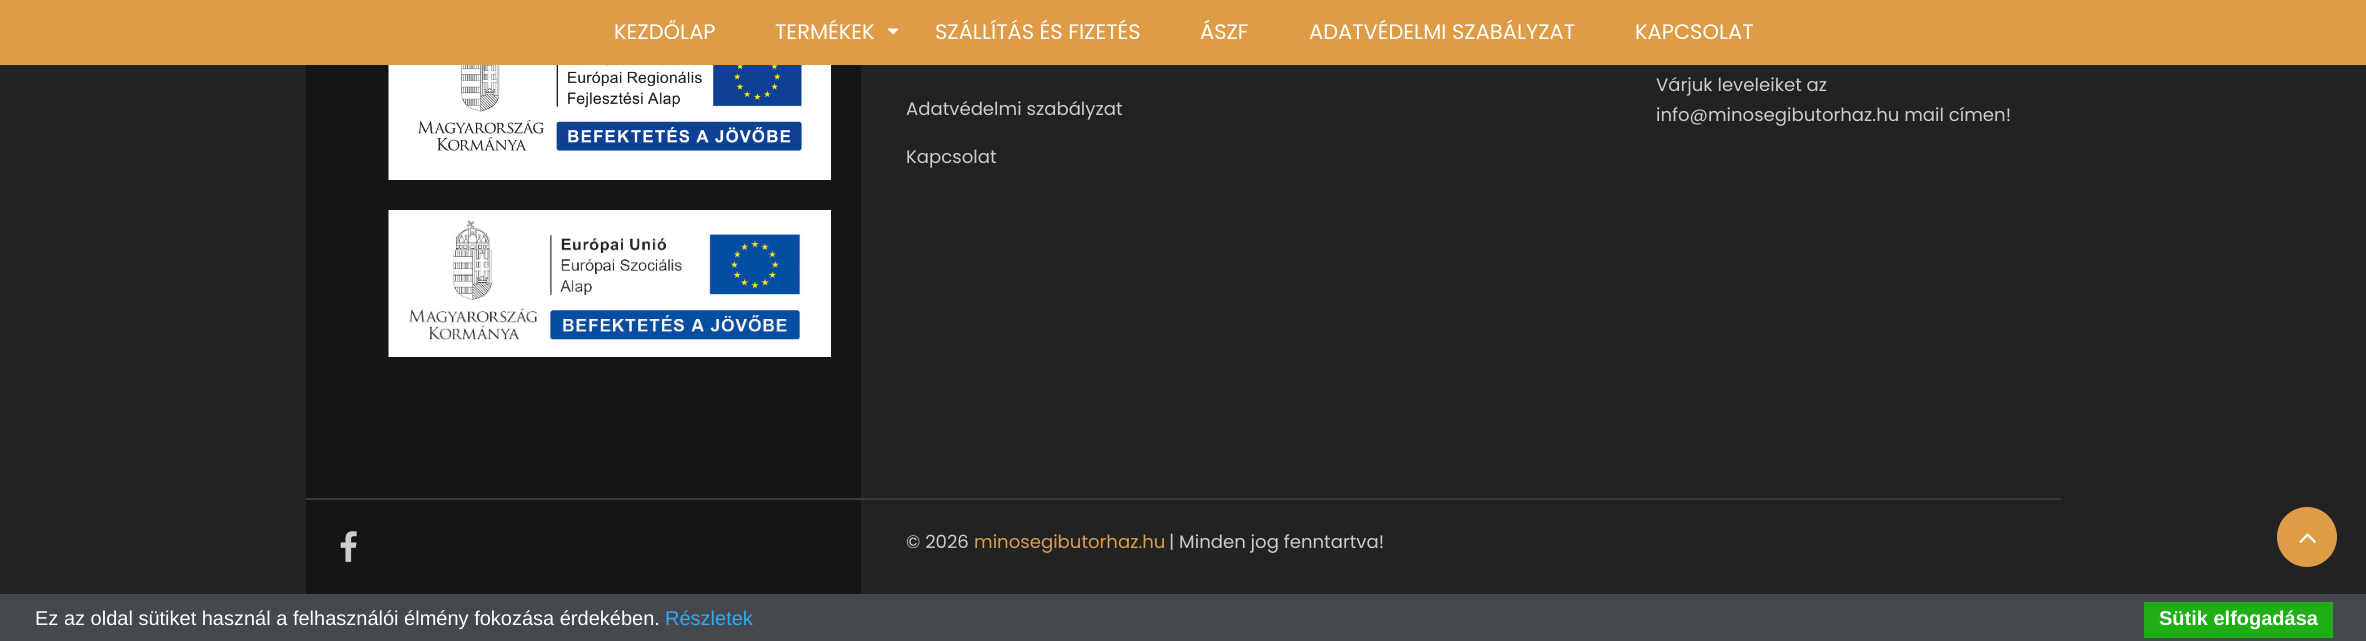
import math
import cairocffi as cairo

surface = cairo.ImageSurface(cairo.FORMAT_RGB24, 2366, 641)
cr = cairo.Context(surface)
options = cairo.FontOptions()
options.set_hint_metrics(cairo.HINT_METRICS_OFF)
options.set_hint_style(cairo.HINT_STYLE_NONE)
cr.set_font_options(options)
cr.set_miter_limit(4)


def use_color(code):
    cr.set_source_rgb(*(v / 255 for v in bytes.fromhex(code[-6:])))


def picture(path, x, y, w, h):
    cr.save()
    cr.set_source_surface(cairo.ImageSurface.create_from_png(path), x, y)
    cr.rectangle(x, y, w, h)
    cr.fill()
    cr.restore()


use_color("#222222")
cr.paint()
use_color("#de9c47")
cr.rectangle(0, 0, 2366, 65)
cr.fill()
cr.select_font_face("Poppins")
cr.set_font_size(21)
use_color("#ffffff")
cr.move_to(614, 39)
cr.show_text("KEZDŐLAP")
cr.move_to(775, 39)
cr.show_text("TERMÉKEK")
picture("img1.png", 888, 28, 11, 7)
cr.move_to(935, 39)
cr.show_text("SZÁLLÍTÁS ÉS FIZETÉS")
cr.move_to(1200, 39)
cr.show_text("ÁSZF")
cr.move_to(1309, 39)
cr.show_text("ADATVÉDELMI SZABÁLYZAT")
cr.move_to(1635, 39)
cr.show_text("KAPCSOLAT")
use_color("#151515")
cr.rectangle(306, 65, 555, 433)
cr.fill()
picture("img2.png", 388, 65, 443, 115)
picture("img3.png", 388, 210, 443, 147)
cr.set_font_size(18.1)
use_color("#cccccc")
cr.move_to(906, 115)
cr.show_text("Adatvédelmi szabályzat")
cr.move_to(906, 163)
cr.show_text("Kapcsolat")
cr.move_to(1656, 91)
cr.show_text("Várjuk leveleiket az")
cr.move_to(1656, 121)
cr.show_text("info@minosegibutorhaz.hu mail címen!")
use_color("#393939")
cr.rectangle(306, 498, 1755, 2)
cr.fill()
use_color("#151515")
cr.rectangle(306, 500, 555, 94)
cr.fill()
picture("img4.png", 340, 531, 17, 31)
use_color("#cccccc")
cr.move_to(906, 548)
cr.show_text("© 2026")
use_color("#de9c47")
cr.move_to(974, 548)
cr.show_text("minosegibutorhaz.hu")
use_color("#cccccc")
cr.move_to(1169, 548)
cr.show_text("| Minden jog fenntartva!")
use_color("#de9c47")
cr.new_path()
cr.arc(2307, 537, 30, 0, 2 * math.pi)
cr.fill()
picture("img5.png", 2299, 533, 17, 10)
use_color("#45484d")
cr.rectangle(0, 594, 2366, 47)
cr.fill()
cr.select_font_face("Liberation Sans")
cr.set_font_size(20)
use_color("#ffffff")
cr.move_to(35, 625)
cr.show_text("Ez az oldal sütiket használ a felhasználói élmény fokozása érdekében.")
use_color("#31a8f0")
cr.move_to(665, 625)
cr.show_text("Részletek")
use_color("#1fae16")
cr.rectangle(2144, 602, 189, 36)
cr.fill()
cr.select_font_face("Liberation Sans", cairo.FONT_SLANT_NORMAL, cairo.FONT_WEIGHT_BOLD)
use_color("#ffffff")
cr.move_to(2159, 625)
cr.show_text("Sütik elfogadása")
surface.write_to_png("result.png")
